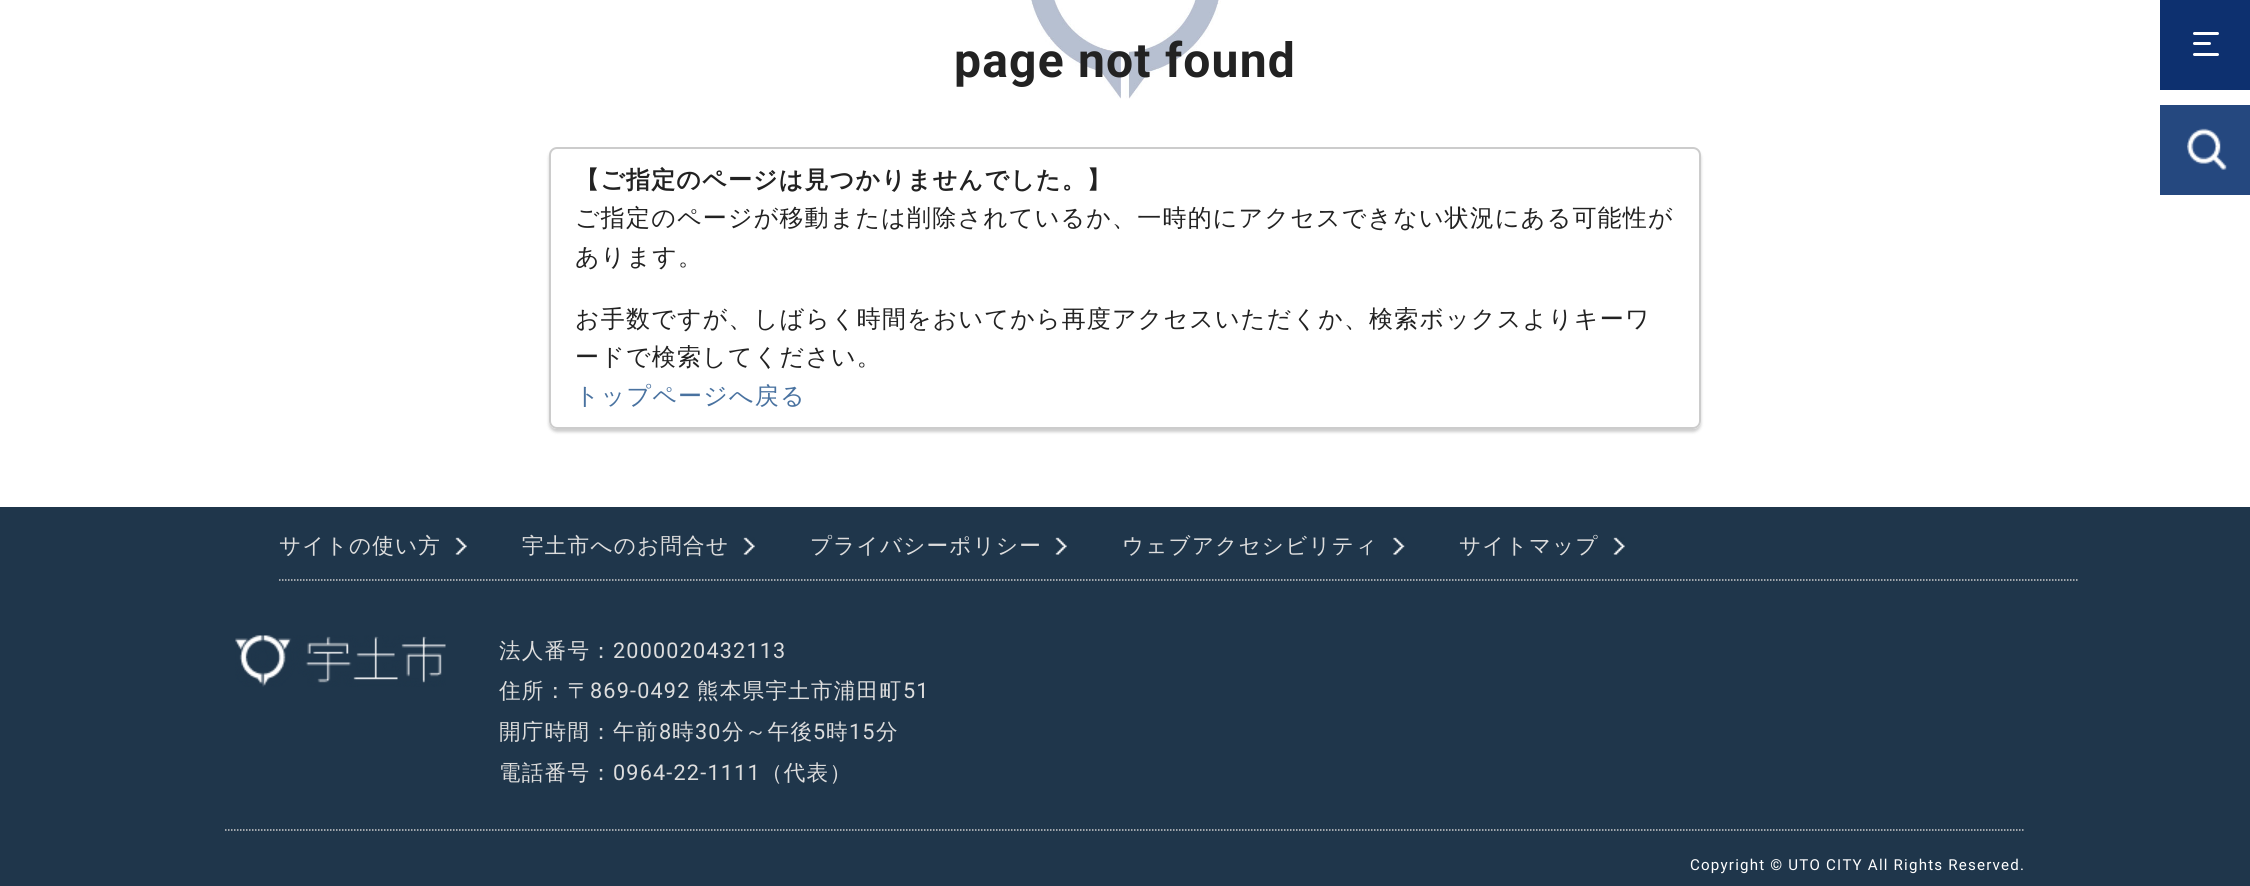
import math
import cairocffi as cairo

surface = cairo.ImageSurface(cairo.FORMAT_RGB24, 2250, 886)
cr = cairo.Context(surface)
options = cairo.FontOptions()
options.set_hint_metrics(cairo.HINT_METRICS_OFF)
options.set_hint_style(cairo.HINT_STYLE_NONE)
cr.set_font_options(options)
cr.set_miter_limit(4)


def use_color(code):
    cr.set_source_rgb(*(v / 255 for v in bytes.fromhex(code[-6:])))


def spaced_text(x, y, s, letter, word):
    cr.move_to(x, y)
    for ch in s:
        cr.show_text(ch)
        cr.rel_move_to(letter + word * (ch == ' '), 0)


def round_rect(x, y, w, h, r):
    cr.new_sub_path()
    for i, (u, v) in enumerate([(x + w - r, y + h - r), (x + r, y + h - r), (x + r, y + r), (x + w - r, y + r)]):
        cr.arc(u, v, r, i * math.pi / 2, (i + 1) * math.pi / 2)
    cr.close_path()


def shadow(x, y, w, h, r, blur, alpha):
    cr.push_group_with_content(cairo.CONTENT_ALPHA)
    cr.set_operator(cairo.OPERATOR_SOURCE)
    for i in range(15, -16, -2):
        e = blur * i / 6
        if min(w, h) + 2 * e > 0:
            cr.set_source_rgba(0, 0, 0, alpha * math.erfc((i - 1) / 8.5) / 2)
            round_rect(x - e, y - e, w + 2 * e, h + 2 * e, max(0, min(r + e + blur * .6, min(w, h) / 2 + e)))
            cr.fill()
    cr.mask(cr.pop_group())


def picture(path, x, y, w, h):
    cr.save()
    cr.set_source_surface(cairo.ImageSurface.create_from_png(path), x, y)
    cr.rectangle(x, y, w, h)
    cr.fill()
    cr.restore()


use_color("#ffffff")
cr.paint()
picture("img1.png", 1031, 0, 190, 99)
cr.select_font_face("Roboto", cairo.FONT_SLANT_NORMAL, cairo.FONT_WEIGHT_BOLD)
cr.set_font_size(48)
use_color("#222222")
spaced_text(954, 77, "page not found", 1.2, 0)
cr.save()
cr.set_fill_rule(cairo.FILL_RULE_EVEN_ODD)
cr.new_path()
cr.move_to(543, 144)
cr.line_to(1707, 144)
cr.line_to(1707, 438)
cr.line_to(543, 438)
cr.close_path()
cr.move_to(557, 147)
cr.line_to(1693, 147)
cr.curve_to(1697.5, 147, 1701, 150.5, 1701, 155)
cr.line_to(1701, 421)
cr.curve_to(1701, 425.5, 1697.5, 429, 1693, 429)
cr.line_to(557, 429)
cr.curve_to(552.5, 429, 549, 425.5, 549, 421)
cr.line_to(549, 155)
cr.curve_to(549, 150.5, 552.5, 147, 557, 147)
cr.close_path()
cr.clip()
use_color("#000000")
shadow(549, 150, 1152, 282, 8, 1.5, 0.2)
cr.restore()
round_rect(550, 148, 1150, 280, 7)
use_color("#cccccc")
cr.stroke()
cr.select_font_face("WenQuanYi Zen Hei", cairo.FONT_SLANT_NORMAL, cairo.FONT_WEIGHT_BOLD)
cr.set_font_size(24)
use_color("#222222")
spaced_text(575, 188, "【ご指定のページは見つかりませんでした。】", 1.2, 0)
cr.select_font_face("WenQuanYi Zen Hei Medium")
spaced_text(575, 226, "ご指定のページが移動または削除されているか、一時的にアクセスできない状況にある可能性が", 1.2, 0)
spaced_text(575, 265, "あります。", 1.2, 0)
spaced_text(575, 327, "お手数ですが、しばらく時間をおいてから再度アクセスいただくか、検索ボックスよりキーワ", 1.2, 0)
spaced_text(575, 365, "ードで検索してください。", 1.2, 0)
use_color("#4972a0")
spaced_text(575, 404, "トップページへ戻る", 1.2, 0)
use_color("#25487f")
cr.rectangle(2160, 105, 90, 90)
cr.fill()
picture("img2.png", 2187, 128, 40, 42)
use_color("#0d306f")
cr.rectangle(2160, 0, 90, 90)
cr.fill()
use_color("#ffffff")
round_rect(2193, 32, 26, 3, 1.5)
cr.fill()
round_rect(2193, 42, 18, 3, 1.5)
cr.fill()
round_rect(2193, 53, 26, 3, 1.5)
cr.fill()
use_color("#1f364b")
cr.rectangle(0, 507, 2250, 379)
cr.fill()
cr.new_path()
cr.move_to(279, 580)
cr.line_to(2079, 580)
use_color("#cccccc")
cr.set_line_width(1.5)
cr.set_dash([1.5, 1.5])
cr.stroke()
cr.set_font_size(21.6)
use_color("#dddddd")
spaced_text(279, 553, "サイトの使い方", 1.2, 0)
picture("img3.png", 455, 537, 12, 18)
spaced_text(522, 553, "宇土市へのお問合せ", 1.2, 0)
picture("img3.png", 743, 537, 12, 18)
spaced_text(810, 553, "プライバシーポリシー", 1.2, 0)
picture("img3.png", 1055, 537, 12, 18)
spaced_text(1122, 553, "ウェブアクセシビリティ", 1.2, 0)
picture("img4.png", 1393, 537, 12, 18)
spaced_text(1459, 553, "サイトマップ", 1.2, 0)
picture("img5.png", 1613, 537, 12, 18)
picture("img6.png", 235, 635, 211, 52)
spaced_text(499, 658, "法人番号：", 1.2, 0)
cr.select_font_face("Roboto")
spaced_text(613, 658, "2000020432113", 1.2, 0)
cr.select_font_face("WenQuanYi Zen Hei Medium")
spaced_text(499, 698, "住所：〒", 1.2, 0)
cr.select_font_face("Roboto")
spaced_text(590, 698, "869-0492", 1.2, 0)
cr.select_font_face("WenQuanYi Zen Hei Medium")
spaced_text(697, 698, "熊本県宇土市浦田町", 1.2, 0)
cr.select_font_face("Roboto")
spaced_text(903, 698, "51", 1.2, 0)
cr.select_font_face("WenQuanYi Zen Hei Medium")
spaced_text(499, 739, "開庁時間：午前", 1.2, 0)
cr.select_font_face("Roboto")
spaced_text(659, 739, "8", 1.2, 0)
cr.select_font_face("WenQuanYi Zen Hei Medium")
spaced_text(672, 739, "時", 1.2, 0)
cr.select_font_face("Roboto")
spaced_text(695, 739, "30", 1.2, 0)
cr.select_font_face("WenQuanYi Zen Hei Medium")
spaced_text(722, 739, "分～午後", 1.2, 0)
cr.select_font_face("Roboto")
spaced_text(813, 739, "5", 1.2, 0)
cr.select_font_face("WenQuanYi Zen Hei Medium")
spaced_text(826, 739, "時", 1.2, 0)
cr.select_font_face("Roboto")
spaced_text(849, 739, "15", 1.2, 0)
cr.select_font_face("WenQuanYi Zen Hei Medium")
spaced_text(876, 739, "分", 1.2, 0)
spaced_text(499, 780, "電話番号：", 1.2, 0)
cr.select_font_face("Roboto")
spaced_text(613, 780, "0964-22-1111", 1.2, 0)
cr.select_font_face("WenQuanYi Zen Hei Medium")
spaced_text(761, 780, "（代表）", 1.2, 0)
cr.new_path()
cr.move_to(225, 830)
cr.line_to(2025, 830)
use_color("#cccccc")
cr.stroke()
cr.select_font_face("Roboto")
cr.set_font_size(15.1)
use_color("#ffffff")
spaced_text(1690, 870, "Copyright © UTO CITY All Rights Reserved.", 1.2, 0)
surface.write_to_png("result.png")
